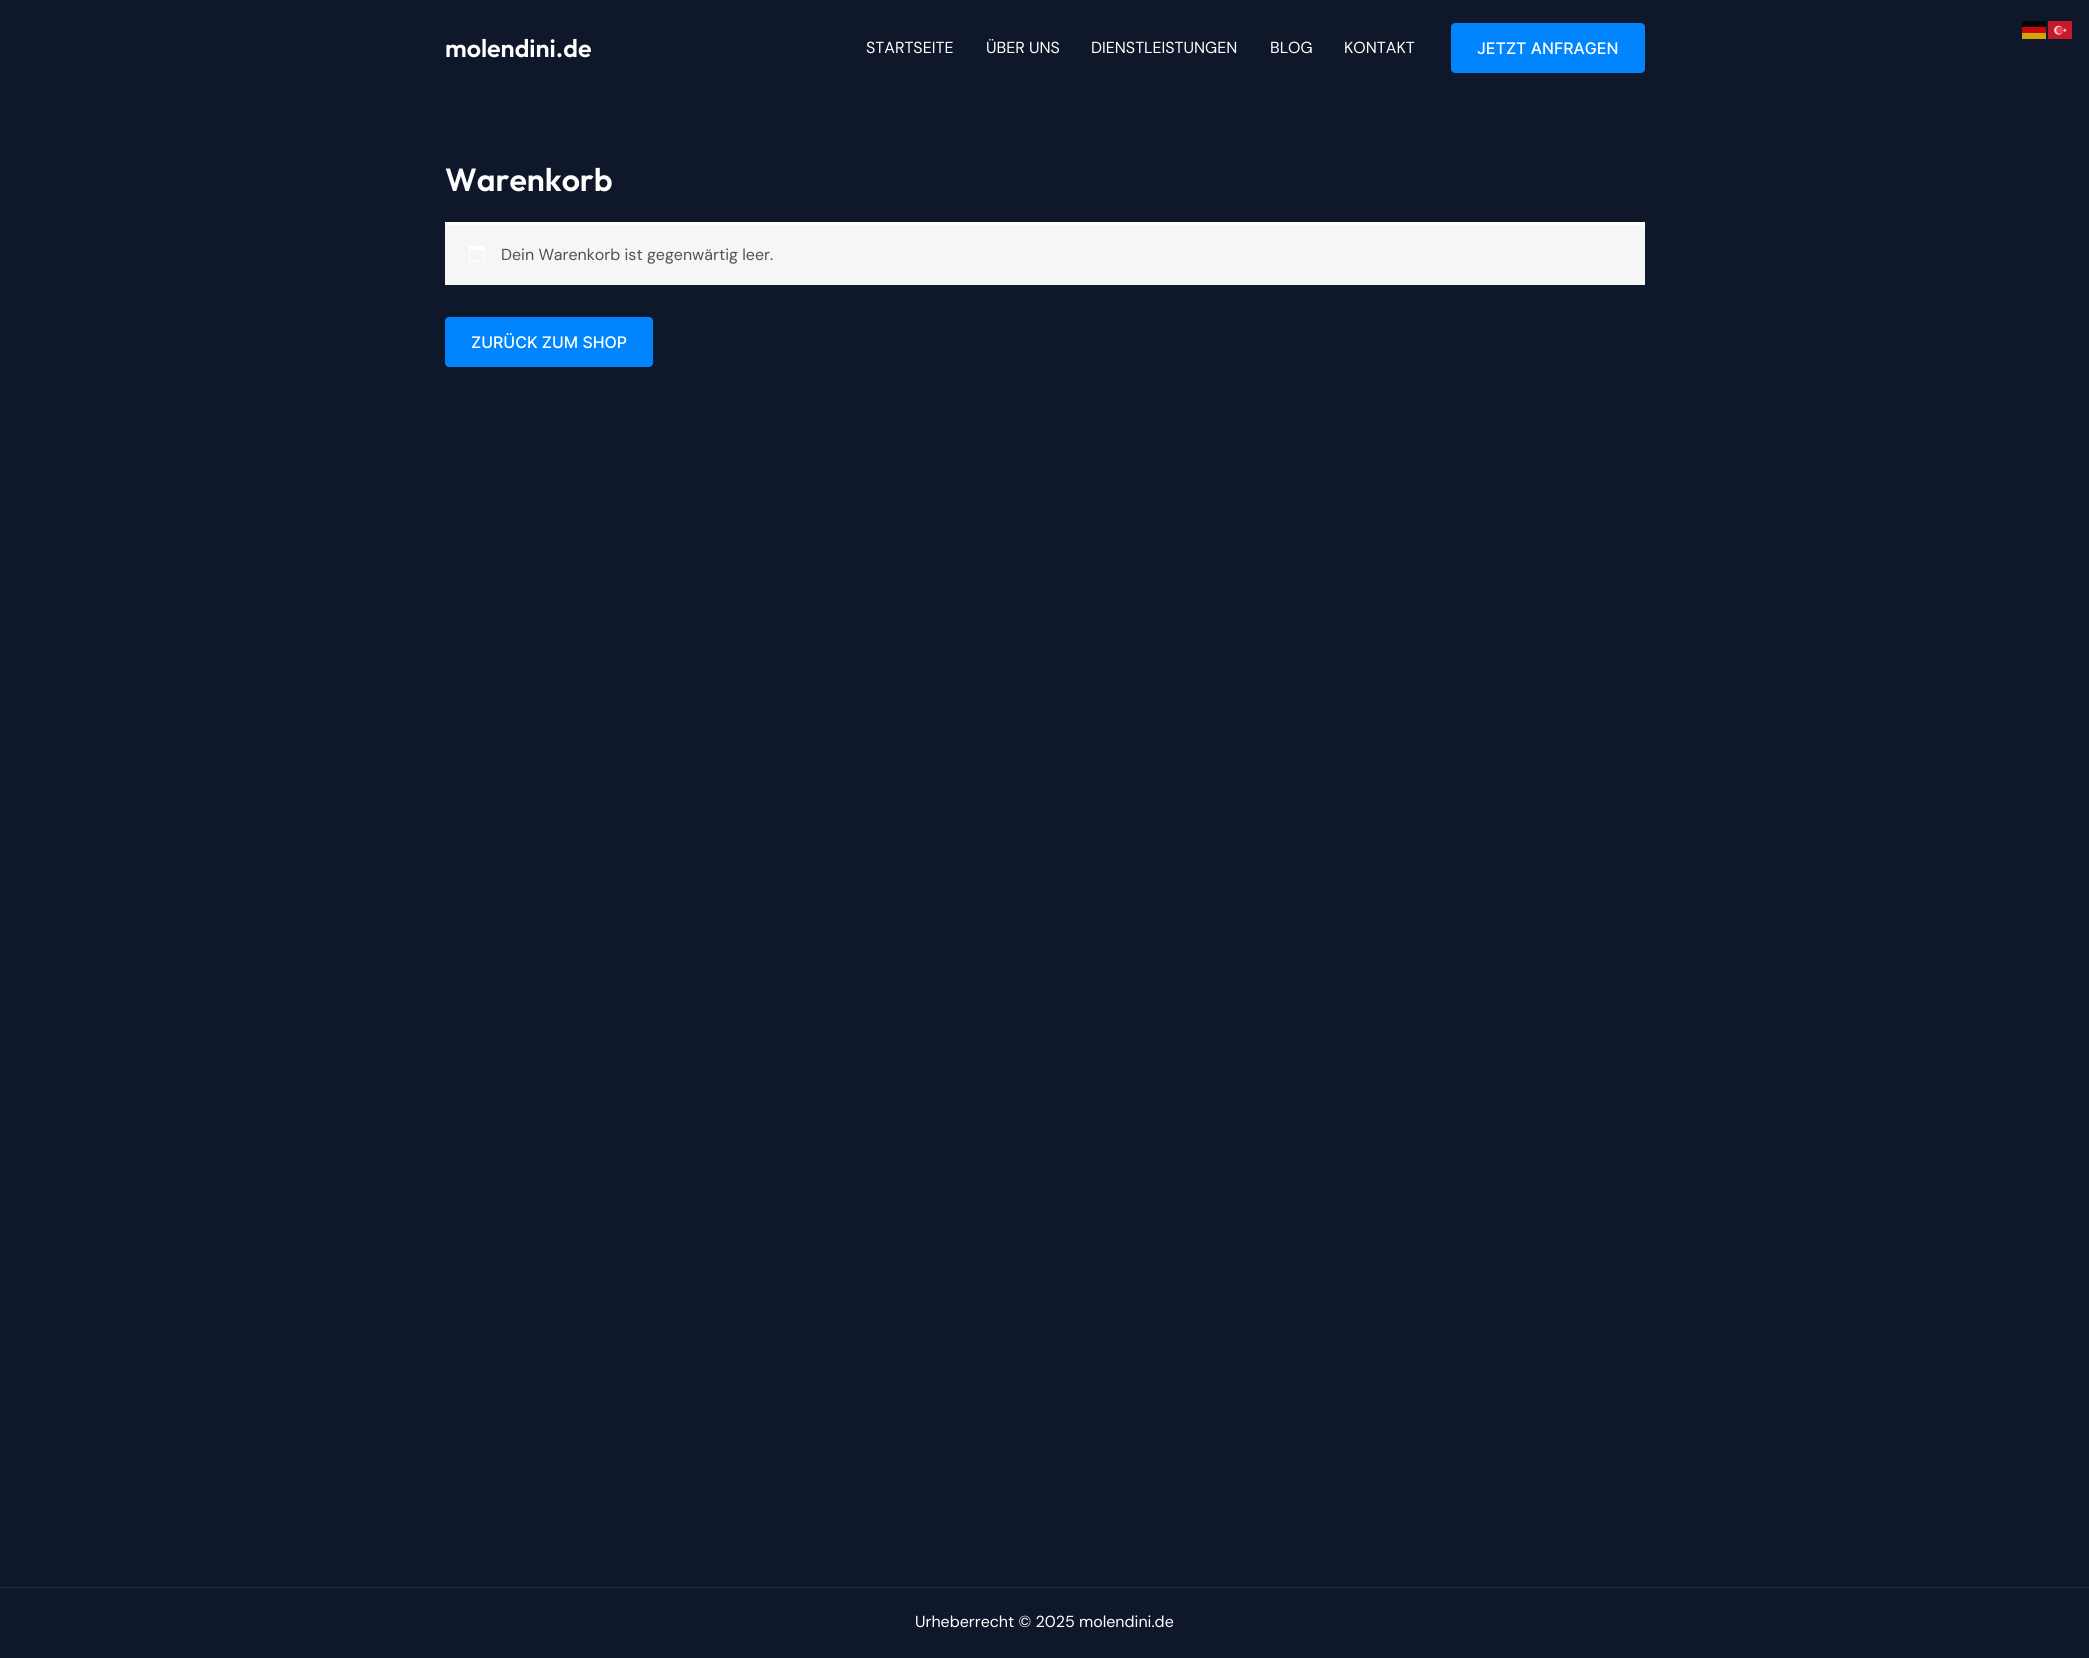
import math
import cairocffi as cairo

surface = cairo.ImageSurface(cairo.FORMAT_RGB24, 2089, 1658)
cr = cairo.Context(surface)
options = cairo.FontOptions()
options.set_hint_metrics(cairo.HINT_METRICS_OFF)
options.set_hint_style(cairo.HINT_STYLE_NONE)
cr.set_font_options(options)
cr.set_miter_limit(4)


def use_color(code):
    cr.set_source_rgb(*(v / 255 for v in bytes.fromhex(code[-6:])))


def round_rect(x, y, w, h, r):
    cr.new_sub_path()
    for i, (u, v) in enumerate([(x + w - r, y + h - r), (x + r, y + h - r), (x + r, y + r), (x + w - r, y + r)]):
        cr.arc(u, v, r, i * math.pi / 2, (i + 1) * math.pi / 2)
    cr.close_path()


def picture(path, x, y, w, h):
    cr.save()
    cr.set_source_surface(cairo.ImageSurface.create_from_png(path), x, y)
    cr.rectangle(x, y, w, h)
    cr.fill()
    cr.restore()


use_color("#0f172a")
cr.paint()
use_color("#030508")
cr.rectangle(2022, 21, 24, 6)
cr.fill()
picture("img1.png", 2048, 21, 24, 18)
use_color("#cf0508")
cr.rectangle(2022, 27, 24, 6)
cr.fill()
use_color("#cfa808")
cr.rectangle(2022, 33, 24, 6)
cr.fill()
cr.select_font_face("Outfit Thin")
cr.set_font_size(25)
use_color("#ffffff")
cr.move_to(445, 57)
cr.show_text("molendini.de")
cr.select_font_face("DM Sans")
cr.set_font_size(16)
cr.move_to(866, 53)
cr.show_text("STARTSEITE")
cr.move_to(986, 53)
cr.show_text("ÜBER UNS")
cr.move_to(1091, 53)
cr.show_text("DIENSTLEISTUNGEN")
cr.move_to(1270, 53)
cr.show_text("BLOG")
cr.move_to(1344, 53)
cr.show_text("KONTAKT")
use_color("#0085ff")
round_rect(1452, 24, 192, 48, 3)
cr.fill_preserve()
cr.stroke()
cr.select_font_face("Inter Medium")
use_color("#ffffff")
cr.move_to(1477, 54)
cr.show_text("JETZT ANFRAGEN")
cr.select_font_face("Outfit Thin")
cr.set_font_size(32)
cr.move_to(445, 191)
cr.show_text("Warenkorb")
use_color("#f7f6f7")
cr.rectangle(445, 225, 1200, 60)
cr.fill()
use_color("#ffffff")
cr.rectangle(445, 222, 1200, 3)
cr.fill()
picture("img2.png", 469, 246, 16, 16)
cr.select_font_face("DM Sans")
cr.set_font_size(16)
use_color("#515151")
cr.move_to(501, 260)
cr.show_text("Dein Warenkorb ist gegenwärtig leer.")
use_color("#0085ff")
round_rect(446, 318, 206, 48, 3)
cr.fill_preserve()
cr.stroke()
cr.select_font_face("Inter Medium")
use_color("#ffffff")
cr.move_to(471, 348)
cr.show_text("ZURÜCK ZUM SHOP")
use_color("#212a37")
cr.rectangle(0, 1587, 2089, 1)
cr.fill()
cr.select_font_face("DM Sans")
use_color("#ffffff")
cr.move_to(915, 1627)
cr.show_text("Urheberrecht © 2025 molendini.de")
surface.write_to_png("result.png")
